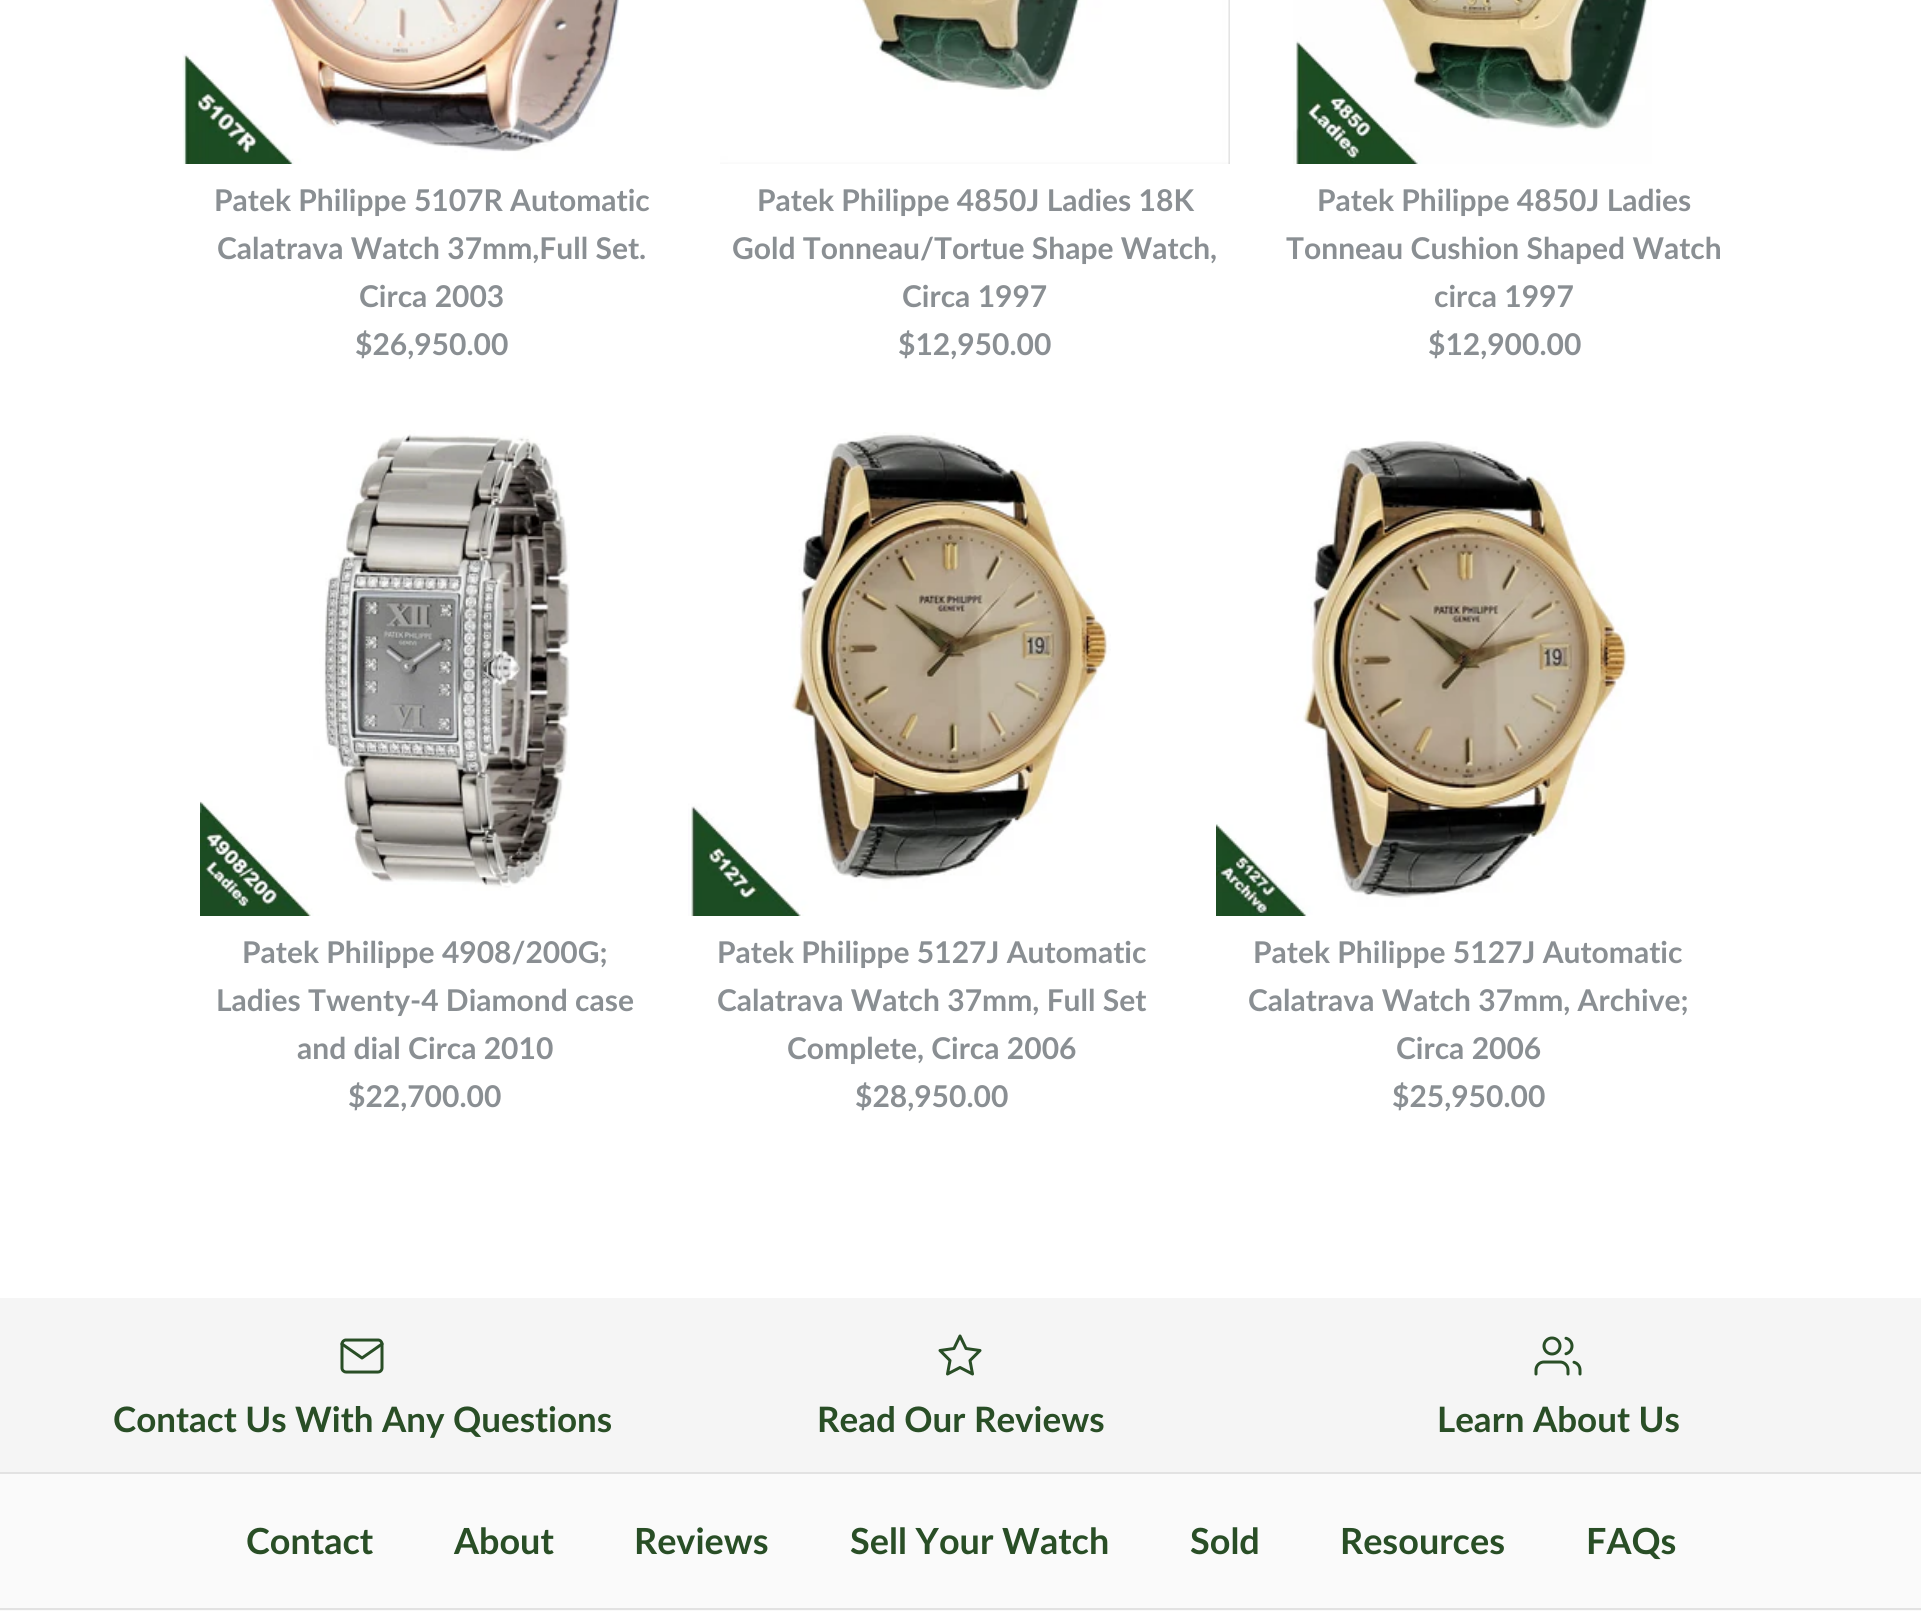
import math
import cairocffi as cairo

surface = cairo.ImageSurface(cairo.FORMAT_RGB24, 1921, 1611)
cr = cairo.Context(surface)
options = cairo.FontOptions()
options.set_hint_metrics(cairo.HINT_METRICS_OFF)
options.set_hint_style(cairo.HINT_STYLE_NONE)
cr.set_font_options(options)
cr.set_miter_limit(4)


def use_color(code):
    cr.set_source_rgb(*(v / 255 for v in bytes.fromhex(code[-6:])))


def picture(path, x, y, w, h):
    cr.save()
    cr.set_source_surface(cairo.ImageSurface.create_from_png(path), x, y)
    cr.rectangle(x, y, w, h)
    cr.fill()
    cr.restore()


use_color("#ffffff")
cr.paint()
picture("img1.png", 182, 0, 438, 164)
cr.select_font_face("Lato", cairo.FONT_SLANT_NORMAL, cairo.FONT_WEIGHT_BOLD)
cr.set_font_size(30)
use_color("#8a8f93")
cr.move_to(214, 211)
cr.show_text("Patek Philippe 5107R Automatic")
cr.move_to(217, 259)
cr.show_text("Calatrava Watch 37mm,Full Set.")
cr.move_to(359, 307)
cr.show_text("Circa 2003")
cr.move_to(355, 355)
cr.show_text("$26,950.00")
picture("img2.png", 720, 0, 510, 164)
cr.move_to(757, 211)
cr.show_text("Patek Philippe 4850J Ladies 18K")
cr.move_to(732, 259)
cr.show_text("Gold Tonneau/Tortue Shape Watch,")
cr.move_to(902, 307)
cr.show_text("Circa 1997")
cr.move_to(898, 355)
cr.show_text("$12,950.00")
picture("img3.png", 1293, 0, 359, 164)
cr.move_to(1317, 211)
cr.show_text("Patek Philippe 4850J Ladies")
cr.move_to(1286, 259)
cr.show_text("Tonneau Cushion Shaped Watch")
cr.move_to(1434, 307)
cr.show_text("circa 1997")
cr.move_to(1428, 355)
cr.show_text("$12,900.00")
picture("img4.png", 200, 430, 370, 486)
cr.move_to(242, 963)
cr.show_text("Patek Philippe 4908/200G;")
cr.move_to(216, 1011)
cr.show_text("Ladies Twenty-4 Diamond case")
cr.move_to(297, 1059)
cr.show_text("and dial Circa 2010")
cr.move_to(348, 1107)
cr.show_text("$22,700.00")
picture("img5.png", 688, 432, 423, 484)
cr.move_to(717, 963)
cr.show_text("Patek Philippe 5127J Automatic")
cr.move_to(717, 1011)
cr.show_text("Calatrava Watch 37mm, Full Set")
cr.move_to(787, 1059)
cr.show_text("Complete, Circa 2006")
cr.move_to(855, 1107)
cr.show_text("$28,950.00")
picture("img6.png", 1216, 440, 413, 476)
cr.move_to(1253, 963)
cr.show_text("Patek Philippe 5127J Automatic")
cr.move_to(1248, 1011)
cr.show_text("Calatrava Watch 37mm, Archive;")
cr.move_to(1396, 1059)
cr.show_text("Circa 2006")
cr.move_to(1392, 1107)
cr.show_text("$25,950.00")
use_color("#fafafa")
cr.rectangle(0, 1474, 1921, 137)
cr.fill()
use_color("#f5f5f5")
cr.rectangle(0, 1298, 1921, 174)
cr.fill()
picture("img7.png", 340, 1338, 44, 36)
cr.set_font_size(35)
use_color("#294e26")
cr.move_to(113, 1432)
cr.show_text("Contact Us With Any Questions")
cr.new_path()
cr.move_to(960, 1336)
cr.line_to(966, 1348.5)
cr.line_to(980, 1350.5)
cr.line_to(970, 1360.5)
cr.line_to(972.5, 1374)
cr.line_to(960, 1367.5)
cr.line_to(947.5, 1374)
cr.line_to(950, 1360.5)
cr.line_to(940, 1350.5)
cr.line_to(954, 1348.5)
cr.close_path()
cr.set_line_width(3)
cr.set_line_cap(cairo.LINE_CAP_ROUND)
cr.set_line_join(cairo.LINE_JOIN_ROUND)
cr.stroke()
cr.move_to(817, 1432)
cr.show_text("Read Our Reviews")
picture("img8.png", 1534, 1336, 48, 40)
cr.move_to(1437, 1432)
cr.show_text("Learn About Us")
use_color("#e2e2e2")
cr.rectangle(0, 1472, 1921, 2)
cr.fill()
cr.rectangle(0, 1608, 1921, 2)
cr.fill()
cr.set_font_size(36)
use_color("#294e26")
cr.move_to(246, 1554)
cr.show_text("Contact")
cr.move_to(454, 1554)
cr.show_text("About")
cr.move_to(634, 1554)
cr.show_text("Reviews")
cr.move_to(850, 1554)
cr.show_text("Sell Your Watch")
cr.move_to(1190, 1554)
cr.show_text("Sold")
cr.move_to(1340, 1554)
cr.show_text("Resources")
cr.move_to(1586, 1554)
cr.show_text("FAQs")
surface.write_to_png("result.png")
